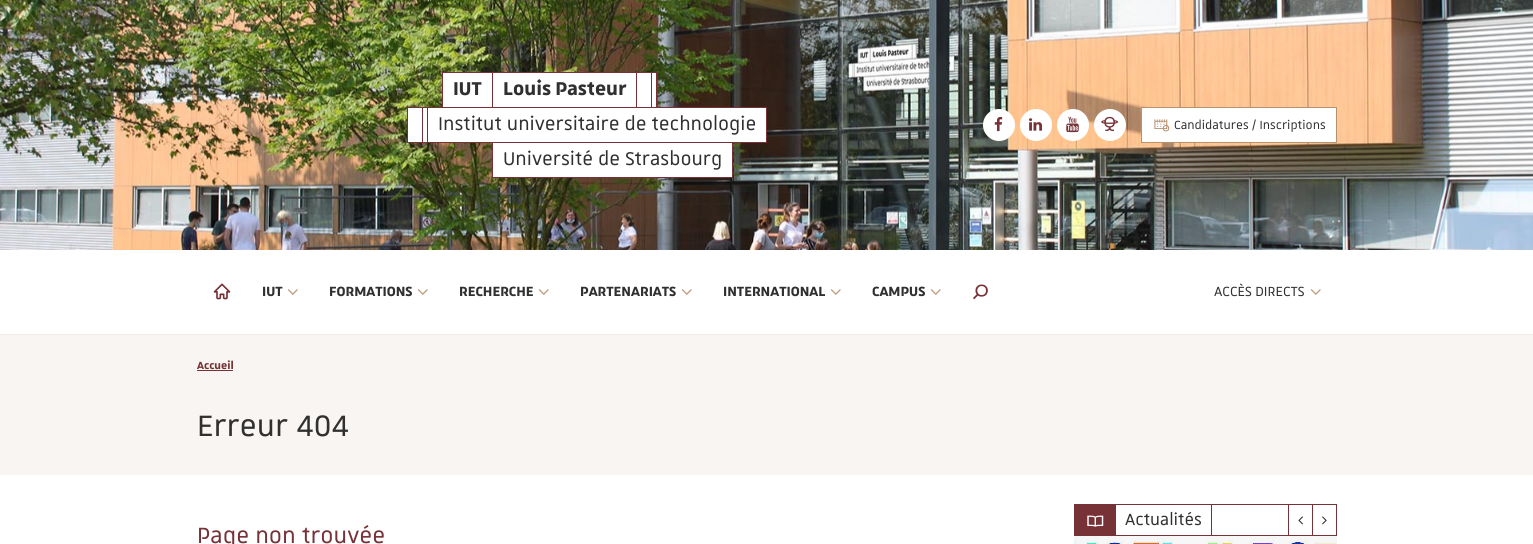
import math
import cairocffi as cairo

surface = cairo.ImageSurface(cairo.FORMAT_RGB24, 1533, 544)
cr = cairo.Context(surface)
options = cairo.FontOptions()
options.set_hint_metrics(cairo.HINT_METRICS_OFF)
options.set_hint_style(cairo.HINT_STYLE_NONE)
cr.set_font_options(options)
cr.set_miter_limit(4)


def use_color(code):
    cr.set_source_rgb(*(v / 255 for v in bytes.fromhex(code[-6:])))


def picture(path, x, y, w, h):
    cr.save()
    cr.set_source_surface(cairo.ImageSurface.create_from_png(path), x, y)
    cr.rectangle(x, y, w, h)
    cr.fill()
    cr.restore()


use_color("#ffffff")
cr.paint()
picture("img1.png", 0, 0, 1533, 250)
use_color("#ffffff")
cr.rectangle(442.5, 72.5, 50, 35)
cr.fill_preserve()
use_color("#763237")
cr.set_line_width(1)
cr.stroke()
cr.select_font_face("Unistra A", cairo.FONT_SLANT_NORMAL, cairo.FONT_WEIGHT_BOLD)
cr.set_font_size(25)
use_color("#303030")
cr.move_to(453, 95)
cr.show_text("IUT")
use_color("#ffffff")
cr.rectangle(492.5, 72.5, 144, 35)
cr.fill_preserve()
use_color("#763237")
cr.stroke()
use_color("#303030")
cr.move_to(503, 95)
cr.show_text("Louis Pasteur")
use_color("#ffffff")
cr.rectangle(636.5, 72.5, 15, 35)
cr.fill_preserve()
use_color("#763237")
cr.stroke()
use_color("#ffffff")
cr.rectangle(651.5, 72.5, 5, 35)
cr.fill_preserve()
use_color("#763237")
cr.stroke()
use_color("#ffffff")
cr.rectangle(407.5, 107.5, 15, 35)
cr.fill_preserve()
use_color("#763237")
cr.stroke()
use_color("#ffffff")
cr.rectangle(422.5, 107.5, 5, 35)
cr.fill_preserve()
use_color("#763237")
cr.stroke()
use_color("#ffffff")
cr.rectangle(427.5, 107.5, 339, 35)
cr.fill_preserve()
use_color("#763237")
cr.stroke()
cr.select_font_face("Unistra A")
use_color("#303030")
cr.move_to(438, 130)
cr.show_text("Institut universitaire de technologie")
use_color("#ffffff")
cr.rectangle(492.5, 142.5, 240, 35)
cr.fill_preserve()
use_color("#763237")
cr.stroke()
use_color("#303030")
cr.move_to(503, 165)
cr.show_text("Université de Strasbourg")
use_color("#ffffff")
cr.new_path()
cr.arc(999, 125, 16, 0, 2 * math.pi)
cr.fill()
picture("img2.png", 994, 117, 9, 15)
cr.arc(1036, 125, 16, 0, 2 * math.pi)
cr.fill()
picture("img3.png", 1029, 118, 14, 13)
cr.arc(1073, 125, 16, 0, 2 * math.pi)
cr.fill()
picture("img4.png", 1066, 116, 13, 17)
cr.arc(1110, 125, 16, 0, 2 * math.pi)
cr.fill()
picture("img5.png", 1101, 116, 17, 16)
cr.rectangle(1141.5, 107.5, 195, 35)
cr.fill_preserve()
use_color("#b8926f")
cr.stroke()
cr.select_font_face("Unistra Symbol")
cr.set_font_size(16)
cr.move_to(1152, 129)
cr.show_text("±")
cr.select_font_face("Unistra A")
use_color("#303030")
cr.move_to(1174, 129)
cr.show_text("Candidatures / Inscriptions")
use_color("#f1ece8")
cr.rectangle(0, 334, 1533, 1)
cr.fill()
picture("img6.png", 213, 283, 18, 17)
cr.select_font_face("Unistra A", cairo.FONT_SLANT_NORMAL, cairo.FONT_WEIGHT_BOLD)
cr.set_font_size(18)
use_color("#303030")
cr.move_to(262, 296)
cr.show_text("IUT")
picture("img7.png", 287, 289, 11, 6)
cr.move_to(329, 296)
cr.show_text("FORMATIONS")
picture("img7.png", 417, 289, 11, 6)
cr.move_to(459, 296)
cr.show_text("RECHERCHE")
picture("img7.png", 538, 289, 11, 6)
cr.move_to(580, 296)
cr.show_text("PARTENARIATS")
picture("img7.png", 681, 289, 11, 6)
cr.move_to(723, 296)
cr.show_text("INTERNATIONAL")
picture("img7.png", 830, 289, 11, 6)
cr.move_to(872, 296)
cr.show_text("CAMPUS")
picture("img7.png", 930, 289, 11, 6)
cr.select_font_face("Unistra Symbol")
cr.set_font_size(28)
use_color("#763237")
cr.move_to(971, 299)
cr.show_text("<")
cr.select_font_face("Unistra A")
cr.set_font_size(18)
use_color("#303030")
cr.move_to(1214, 296)
cr.show_text("ACCÈS DIRECTS")
picture("img7.png", 1310, 289, 11, 6)
use_color("#f8f5f2")
cr.rectangle(0, 335, 1533, 140)
cr.fill()
cr.select_font_face("Unistra A", cairo.FONT_SLANT_NORMAL, cairo.FONT_WEIGHT_BOLD)
cr.set_font_size(14)
use_color("#763237")
cr.move_to(197, 369)
cr.show_text("Accueil")
cr.rectangle(197, 370, 36, 1)
cr.fill()
cr.select_font_face("Unistra A")
cr.set_font_size(40)
use_color("#303030")
cr.move_to(197, 436)
cr.show_text("Erreur 404")
use_color("#763237")
cr.rectangle(1074, 504, 41, 32)
cr.fill()
picture("img8.png", 1087, 515, 17, 12)
cr.rectangle(1115.5, 504.5, 96, 31)
cr.stroke()
cr.set_font_size(22)
use_color("#303030")
cr.move_to(1125, 525)
cr.show_text("Actualités")
cr.rectangle(1211.5, 504.5, 77, 31)
use_color("#763237")
cr.stroke()
cr.rectangle(1288.5, 504.5, 24, 31)
cr.stroke()
picture("img9.png", 1298, 516, 5, 9)
cr.rectangle(1312.5, 504.5, 24, 31)
cr.stroke()
picture("img10.png", 1322, 516, 5, 9)
picture("img11.png", 1074, 536, 263, 8)
cr.set_font_size(30)
cr.move_to(197, 543)
cr.show_text("Page non trouvée")
surface.write_to_png("result.png")
